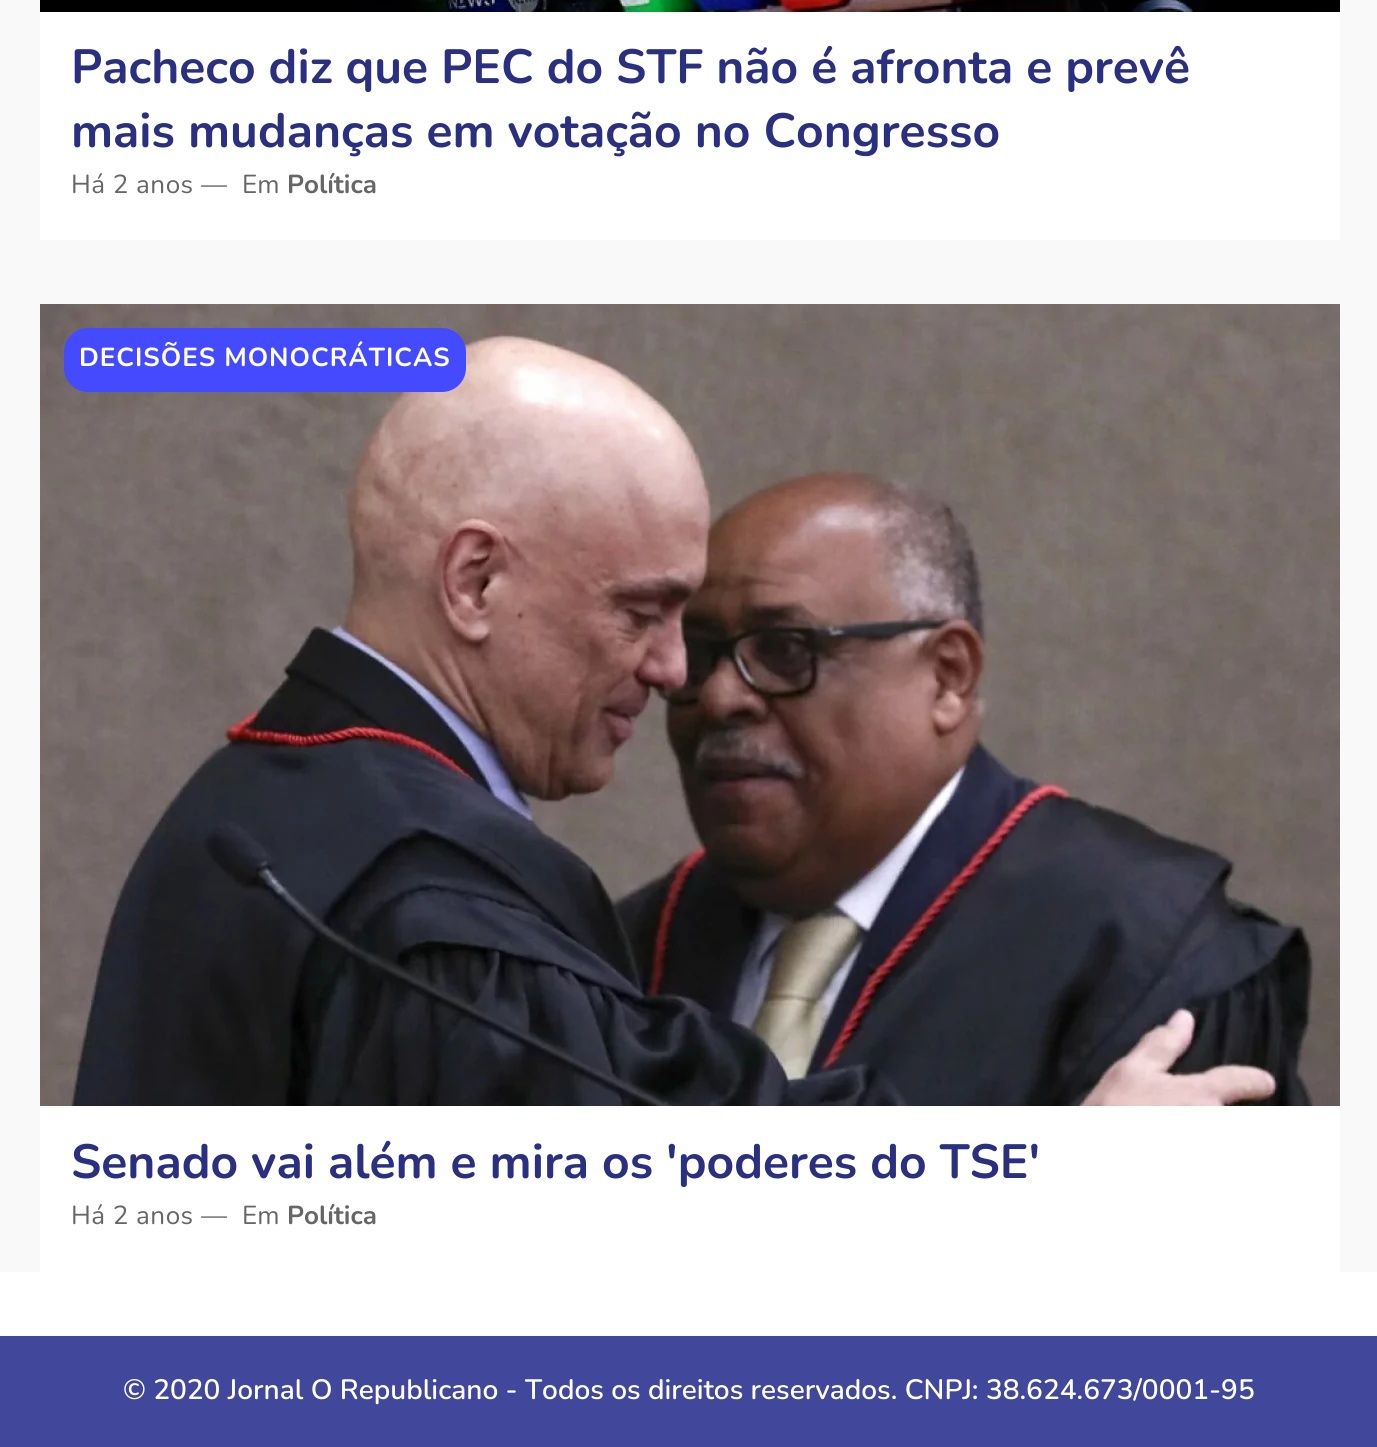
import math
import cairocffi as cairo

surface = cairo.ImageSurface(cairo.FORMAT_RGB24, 1377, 1447)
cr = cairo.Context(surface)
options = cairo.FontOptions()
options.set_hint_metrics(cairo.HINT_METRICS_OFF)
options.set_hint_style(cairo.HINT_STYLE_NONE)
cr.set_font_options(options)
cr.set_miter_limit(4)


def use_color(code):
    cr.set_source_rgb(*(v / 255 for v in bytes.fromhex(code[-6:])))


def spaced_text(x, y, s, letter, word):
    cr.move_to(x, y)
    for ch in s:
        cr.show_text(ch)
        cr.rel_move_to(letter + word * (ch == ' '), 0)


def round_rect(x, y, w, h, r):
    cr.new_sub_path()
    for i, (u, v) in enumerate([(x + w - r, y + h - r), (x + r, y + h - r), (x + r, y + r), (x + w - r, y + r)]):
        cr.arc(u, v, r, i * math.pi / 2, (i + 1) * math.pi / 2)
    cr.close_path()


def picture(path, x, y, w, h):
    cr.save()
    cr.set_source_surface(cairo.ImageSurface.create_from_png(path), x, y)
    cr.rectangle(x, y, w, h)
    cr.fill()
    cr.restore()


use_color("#ffffff")
cr.paint()
use_color("#f9f9f9")
cr.rectangle(0, 0, 1377, 1272)
cr.fill()
use_color("#ffffff")
cr.rectangle(40, 12, 1300, 228)
cr.fill()
picture("img1.png", 40, 0, 1300, 12)
cr.select_font_face("Nunito", cairo.FONT_SLANT_NORMAL, cairo.FONT_WEIGHT_BOLD)
cr.set_font_size(48)
use_color("#2a2f7f")
cr.move_to(71, 83)
cr.show_text("Pacheco diz que PEC do STF não é afronta e prevê")
cr.move_to(71, 147)
cr.show_text("mais mudanças em votação no Congresso")
cr.select_font_face("Nunito")
cr.set_font_size(26)
use_color("#666666")
spaced_text(71, 193, "Há 2 anos", 0.5, 0)
spaced_text(201, 193, "—", 0.5, 0)
cr.move_to(242, 193)
cr.show_text("Em")
cr.select_font_face("Nunito", cairo.FONT_SLANT_NORMAL, cairo.FONT_WEIGHT_BOLD)
cr.move_to(287, 193)
cr.show_text("Política")
use_color("#ffffff")
cr.rectangle(40, 1106, 1300, 166)
cr.fill()
picture("img2.png", 40, 304, 1300, 802)
use_color("#444bff")
round_rect(64, 328, 402, 64, 24)
cr.fill()
use_color("#ffffff")
spaced_text(79, 366, "DECISÕES MONOCRÁTICAS", 1, 0)
cr.set_font_size(48)
use_color("#2a2f7f")
cr.move_to(71, 1178)
cr.show_text("Senado vai além e mira os 'poderes do TSE'")
cr.select_font_face("Nunito")
cr.set_font_size(26)
use_color("#666666")
spaced_text(71, 1224, "Há 2 anos", 0.5, 0)
spaced_text(201, 1224, "—", 0.5, 0)
cr.move_to(242, 1224)
cr.show_text("Em")
cr.select_font_face("Nunito", cairo.FONT_SLANT_NORMAL, cairo.FONT_WEIGHT_BOLD)
cr.move_to(287, 1224)
cr.show_text("Política")
use_color("#41479b")
cr.rectangle(0, 1336, 1377, 111)
cr.fill()
cr.select_font_face("Nunito SemiBold")
cr.set_font_size(28)
use_color("#ffffff")
cr.move_to(123, 1399)
cr.show_text("© 2020 Jornal O Republicano - Todos os direitos reservados. CNPJ: 38.624.673/0001-95")
surface.write_to_png("result.png")
